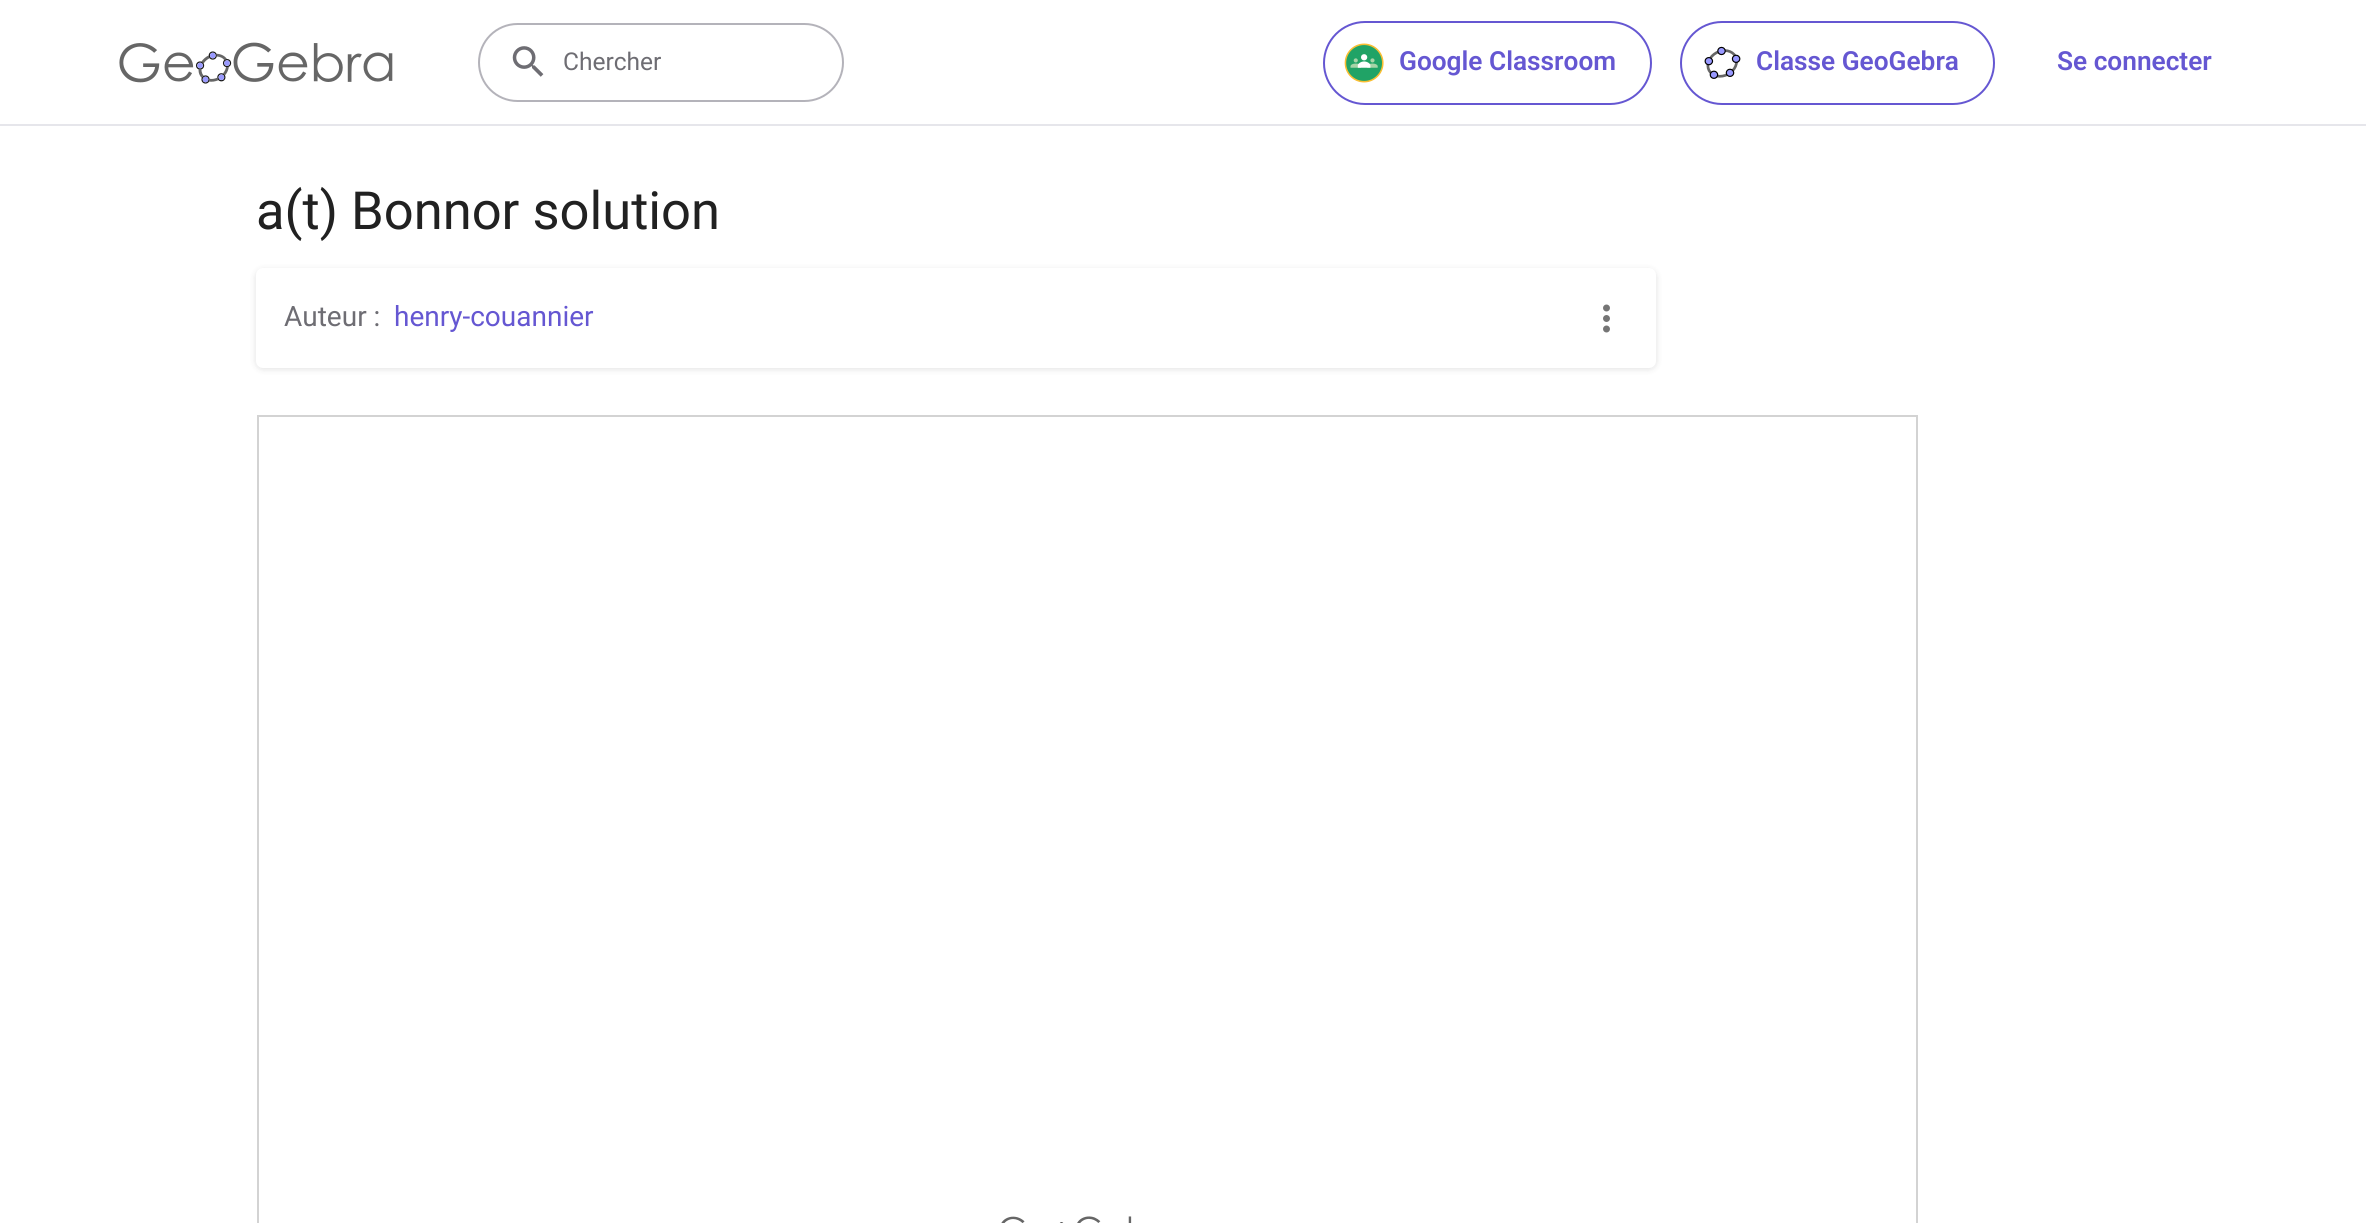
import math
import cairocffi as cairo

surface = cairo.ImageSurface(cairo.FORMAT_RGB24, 2366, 1223)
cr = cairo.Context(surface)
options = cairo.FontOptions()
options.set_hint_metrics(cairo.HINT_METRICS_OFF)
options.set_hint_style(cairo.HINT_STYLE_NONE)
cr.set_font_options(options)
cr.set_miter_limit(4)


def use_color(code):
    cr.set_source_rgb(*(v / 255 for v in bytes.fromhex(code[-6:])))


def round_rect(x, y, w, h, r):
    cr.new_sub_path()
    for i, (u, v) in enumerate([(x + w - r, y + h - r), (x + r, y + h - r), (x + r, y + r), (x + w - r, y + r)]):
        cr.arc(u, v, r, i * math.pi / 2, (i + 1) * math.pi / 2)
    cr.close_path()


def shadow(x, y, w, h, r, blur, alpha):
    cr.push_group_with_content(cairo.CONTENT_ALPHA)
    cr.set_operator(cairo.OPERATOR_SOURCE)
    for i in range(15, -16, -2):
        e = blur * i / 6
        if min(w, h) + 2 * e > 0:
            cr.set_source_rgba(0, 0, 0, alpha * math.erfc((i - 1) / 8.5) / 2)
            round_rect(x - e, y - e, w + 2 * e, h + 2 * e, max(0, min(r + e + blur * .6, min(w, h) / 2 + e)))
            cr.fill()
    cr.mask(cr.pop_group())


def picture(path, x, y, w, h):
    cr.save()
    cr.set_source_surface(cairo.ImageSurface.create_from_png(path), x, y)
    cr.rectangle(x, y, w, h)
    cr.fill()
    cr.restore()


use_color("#ffffff")
cr.paint()
use_color("#e6e6eb")
cr.rectangle(0, 124, 2366, 2)
cr.fill()
picture("img1.png", 119, 42, 274, 42)
round_rect(479, 24, 364, 77, 38.5)
use_color("#b4b3ba")
cr.stroke()
picture("img2.png", 512, 46, 32, 31)
cr.select_font_face("Roboto")
cr.set_font_size(24.5)
use_color("#6e6d73")
cr.move_to(563, 70)
cr.show_text("Chercher")
round_rect(1324, 22, 327, 82, 41)
use_color("#6557d2")
cr.stroke()
picture("img3.png", 1344, 43, 40, 40)
cr.select_font_face("Roboto SemiBold")
cr.set_font_size(26.25)
cr.move_to(1399, 70)
cr.show_text("Google Classroom")
round_rect(1681, 22, 313, 82, 41)
cr.stroke()
picture("img4.png", 1704, 46, 37, 33)
cr.move_to(1756, 70)
cr.show_text("Classe GeoGebra")
cr.move_to(2057, 70)
cr.show_text("Se connecter")
cr.select_font_face("Roboto")
cr.set_font_size(52.5)
use_color("#212121")
cr.move_to(256, 229)
cr.show_text("a(t) Bonnor solution")
use_color("#1c1c1f")
shadow(256, 270, 1400, 99, 7, 3.5, 0.14)
use_color("#ffffff")
round_rect(256, 268, 1400, 100, 7)
cr.fill()
cr.set_font_size(28)
use_color("#6e6d73")
cr.move_to(284, 326)
cr.show_text("Auteur :")
use_color("#6557d2")
cr.move_to(394, 326)
cr.show_text("henry-couannier")
picture("img5.png", 1603, 304, 7, 29)
picture("img6.png", 1001, 1216, 131, 7)
cr.rectangle(258, 416, 1659, 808)
use_color("#d3d3d3")
cr.stroke()
surface.write_to_png("result.png")
